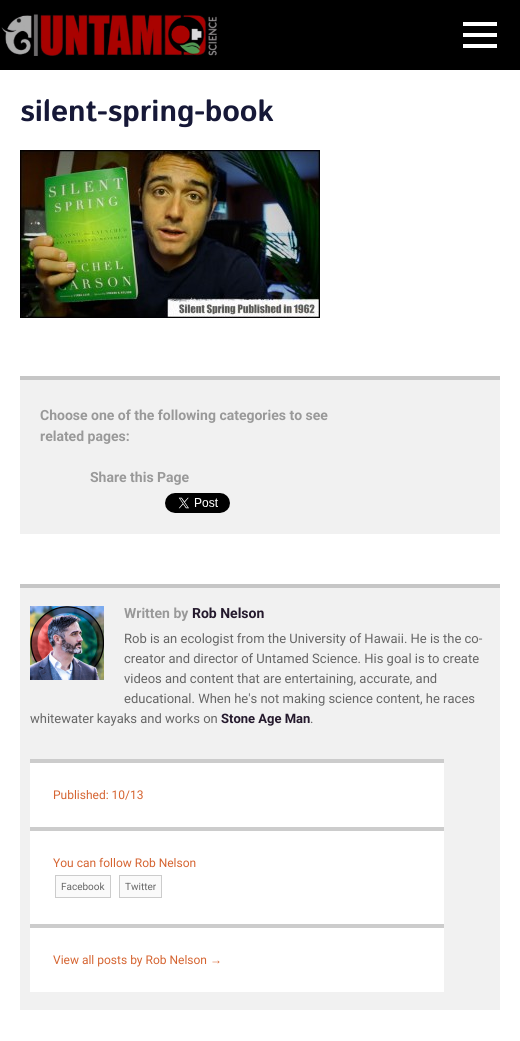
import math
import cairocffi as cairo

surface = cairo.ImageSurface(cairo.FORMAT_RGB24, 520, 1041)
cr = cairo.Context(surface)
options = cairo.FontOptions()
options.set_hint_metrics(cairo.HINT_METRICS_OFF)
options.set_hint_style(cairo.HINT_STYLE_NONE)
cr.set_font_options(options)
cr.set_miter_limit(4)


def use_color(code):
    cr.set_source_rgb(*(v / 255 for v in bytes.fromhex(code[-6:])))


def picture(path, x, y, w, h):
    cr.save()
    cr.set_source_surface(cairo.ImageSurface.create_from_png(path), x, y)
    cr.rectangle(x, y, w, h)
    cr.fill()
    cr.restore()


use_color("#ffffff")
cr.paint()
use_color("#000000")
cr.rectangle(0, 0, 520, 70)
cr.fill()
picture("img1.png", 1, 14, 216, 42)
use_color("#ffffff")
cr.rectangle(463, 33, 34, 4)
cr.fill()
cr.rectangle(463, 22, 34, 4)
cr.fill()
cr.rectangle(463, 44, 34, 4)
cr.fill()
cr.select_font_face("Istok Web", cairo.FONT_SLANT_NORMAL, cairo.FONT_WEIGHT_BOLD)
cr.set_font_size(30)
use_color("#161837")
cr.move_to(20, 121)
cr.show_text("silent-spring-book")
picture("img2.png", 20, 150, 300, 168)
use_color("#f1f1f1")
cr.rectangle(20, 380, 480, 154)
cr.fill()
use_color("#c6c6c6")
cr.rectangle(20, 376, 480, 4)
cr.fill()
cr.select_font_face("Roboto", cairo.FONT_SLANT_NORMAL, cairo.FONT_WEIGHT_BOLD)
cr.set_font_size(14)
use_color("#999999")
cr.move_to(40, 420)
cr.show_text("Choose one of the following categories to see")
cr.move_to(40, 441)
cr.show_text("related pages:")
cr.move_to(90, 482)
cr.show_text("Share this Page")
picture("img3.png", 165, 493, 65, 20)
use_color("#f1f1f1")
cr.rectangle(20, 588, 480, 422)
cr.fill()
use_color("#c6c6c6")
cr.rectangle(20, 584, 480, 4)
cr.fill()
picture("img4.png", 30, 606, 74, 74)
use_color("#999999")
cr.move_to(124, 618)
cr.show_text("Written by")
use_color("#251a2d")
cr.move_to(192, 618)
cr.show_text("Rob Nelson")
cr.select_font_face("Roboto")
cr.set_font_size(13)
use_color("#666666")
cr.move_to(124, 643)
cr.show_text("Rob is an ecologist from the University of Hawaii. He is the co-")
cr.move_to(124, 663)
cr.show_text("creator and director of Untamed Science. His goal is to create")
cr.move_to(124, 683)
cr.show_text("videos and content that are entertaining, accurate, and")
cr.move_to(124, 703)
cr.show_text("educational. When he's not making science content, he races")
cr.move_to(30, 723)
cr.show_text("whitewater kayaks and works on")
cr.select_font_face("Roboto", cairo.FONT_SLANT_NORMAL, cairo.FONT_WEIGHT_BOLD)
use_color("#251a2d")
cr.move_to(221, 723)
cr.show_text("Stone Age Man")
cr.select_font_face("Roboto")
use_color("#666666")
cr.move_to(310, 723)
cr.show_text(".")
use_color("#ffffff")
cr.rectangle(30, 763, 414, 64)
cr.fill()
use_color("#cccccc")
cr.rectangle(30, 759, 414, 4)
cr.fill()
cr.set_font_size(12)
use_color("#d56431")
cr.move_to(53, 799)
cr.show_text("Published: 10/13")
use_color("#ffffff")
cr.rectangle(30, 831, 414, 93)
cr.fill()
use_color("#cccccc")
cr.rectangle(30, 827, 414, 4)
cr.fill()
use_color("#d56431")
cr.move_to(53, 867)
cr.show_text("You can follow Rob Nelson")
use_color("#fafafa")
cr.rectangle(55.5, 875.5, 55, 22)
cr.fill_preserve()
use_color("#cccccc")
cr.set_line_width(1)
cr.stroke()
cr.set_font_size(10)
use_color("#666666")
cr.move_to(61, 890)
cr.show_text("Facebook")
use_color("#fafafa")
cr.rectangle(119.5, 875.5, 42, 22)
cr.fill_preserve()
use_color("#cccccc")
cr.stroke()
use_color("#666666")
cr.move_to(125, 890)
cr.show_text("Twitter")
use_color("#ffffff")
cr.rectangle(30, 928, 414, 64)
cr.fill()
use_color("#cccccc")
cr.rectangle(30, 924, 414, 4)
cr.fill()
cr.set_font_size(12)
use_color("#d56431")
cr.move_to(53, 964)
cr.show_text("View all posts by Rob Nelson")
cr.select_font_face("Liberation Sans")
cr.move_to(210, 964)
cr.show_text("→")
surface.write_to_png("result.png")
